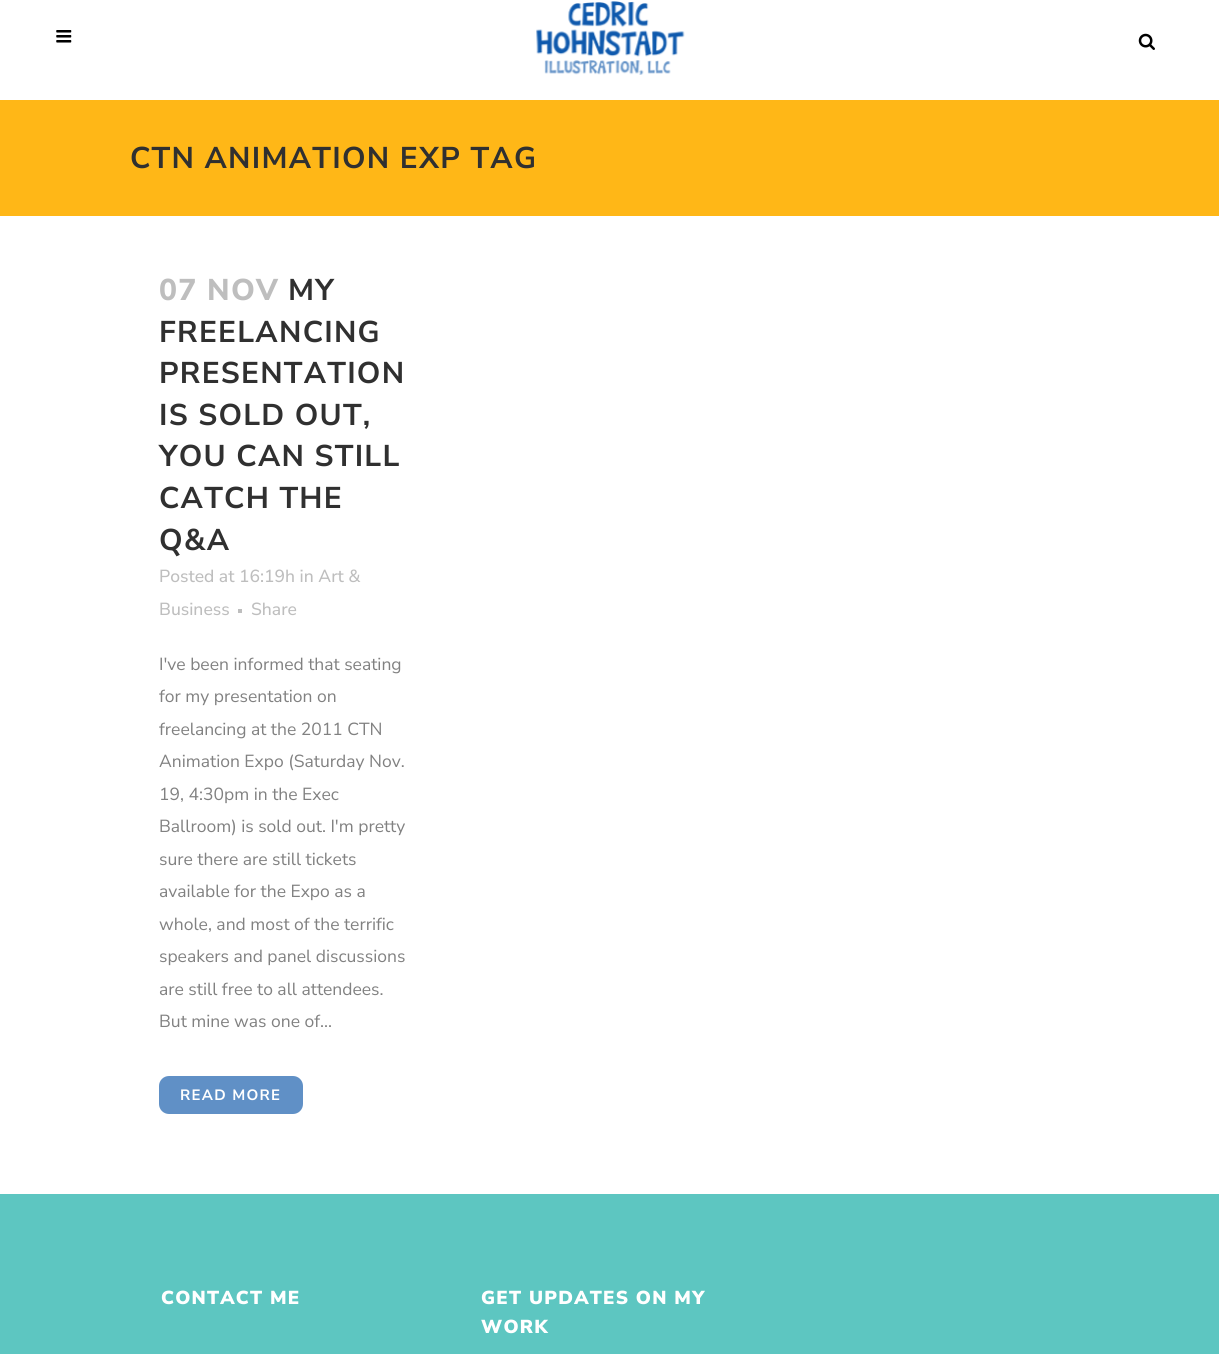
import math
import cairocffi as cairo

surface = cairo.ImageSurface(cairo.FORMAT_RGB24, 1219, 1354)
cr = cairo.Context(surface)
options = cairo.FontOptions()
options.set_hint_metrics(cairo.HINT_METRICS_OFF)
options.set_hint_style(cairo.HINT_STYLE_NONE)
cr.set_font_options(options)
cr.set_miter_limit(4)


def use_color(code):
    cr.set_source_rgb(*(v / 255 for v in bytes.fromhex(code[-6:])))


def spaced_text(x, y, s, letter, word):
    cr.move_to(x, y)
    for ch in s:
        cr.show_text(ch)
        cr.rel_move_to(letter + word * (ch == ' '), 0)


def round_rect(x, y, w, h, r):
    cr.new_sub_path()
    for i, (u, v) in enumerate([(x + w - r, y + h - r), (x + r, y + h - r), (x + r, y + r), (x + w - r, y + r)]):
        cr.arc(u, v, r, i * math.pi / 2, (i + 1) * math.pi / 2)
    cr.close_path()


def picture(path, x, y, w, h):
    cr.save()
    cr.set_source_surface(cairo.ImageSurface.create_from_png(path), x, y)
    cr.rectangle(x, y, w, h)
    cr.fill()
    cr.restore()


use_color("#ffffff")
cr.paint()
picture("img1.png", 56, 30, 16, 13)
picture("img2.png", 536, 1, 149, 74)
picture("img3.png", 1138, 33, 17, 17)
use_color("#ffb717")
cr.rectangle(0, 100, 1219, 116)
cr.fill()
cr.select_font_face("Nunito Sans", cairo.FONT_SLANT_NORMAL, cairo.FONT_WEIGHT_BOLD)
cr.set_font_size(30)
use_color("#303030")
spaced_text(130, 168, "CTN ANIMATION EXP TAG", 1.25, 0)
cr.select_font_face("Nunito Sans ExtraBold")
use_color("#bebebe")
spaced_text(159, 300, "07 NOV", 1.25, 0)
cr.select_font_face("Nunito Sans", cairo.FONT_SLANT_NORMAL, cairo.FONT_WEIGHT_BOLD)
use_color("#303030")
spaced_text(288, 300, "MY", 1.25, 0)
spaced_text(159, 342, "FREELANCING", 1.25, 0)
spaced_text(159, 383, "PRESENTATION", 1.25, 0)
spaced_text(159, 425, "IS SOLD OUT,", 1.25, 0)
spaced_text(159, 466, "YOU CAN STILL", 1.25, 0)
spaced_text(159, 508, "CATCH THE", 1.25, 0)
spaced_text(159, 550, "Q&A", 1.25, 0)
cr.select_font_face("Nunito Sans Medium")
cr.set_font_size(17.5)
use_color("#bebebe")
cr.move_to(159, 582)
cr.show_text("Posted at 16:19h in Art &")
cr.move_to(159, 615)
cr.show_text("Business")
cr.rectangle(238, 609, 4, 4)
cr.fill()
cr.move_to(251, 615)
cr.show_text("Share")
cr.select_font_face("Nunito Sans")
use_color("#818181")
cr.move_to(159, 670)
cr.show_text("I've been informed that seating")
cr.move_to(159, 702)
cr.show_text("for my presentation on")
cr.move_to(159, 735)
cr.show_text("freelancing at the 2011 CTN")
cr.move_to(159, 767)
cr.show_text("Animation Expo (Saturday Nov.")
cr.move_to(159, 800)
cr.show_text("19, 4:30pm in the Exec")
cr.move_to(159, 832)
cr.show_text("Ballroom) is sold out. I'm pretty")
cr.move_to(159, 865)
cr.show_text("sure there are still tickets")
cr.move_to(159, 897)
cr.show_text("available for the Expo as a")
cr.move_to(159, 930)
cr.show_text("whole, and most of the terrific")
cr.move_to(159, 962)
cr.show_text("speakers and panel discussions")
cr.move_to(159, 995)
cr.show_text("are still free to all attendees.")
cr.move_to(159, 1027)
cr.show_text("But mine was one of...")
use_color("#6090c6")
round_rect(159, 1076, 144, 38, 10)
cr.fill()
cr.select_font_face("Nunito Sans", cairo.FONT_SLANT_NORMAL, cairo.FONT_WEIGHT_BOLD)
cr.set_font_size(15)
use_color("#ffffff")
spaced_text(180, 1100, "READ MORE", 1.25, 0)
use_color("#5dc6c1")
cr.rectangle(0, 1194, 1219, 160)
cr.fill()
cr.select_font_face("Nunito Sans Black")
cr.set_font_size(18.75)
use_color("#ffffff")
spaced_text(161, 1304, "CONTACT ME", 1.25, 0)
spaced_text(481, 1304, "GET UPDATES ON MY", 1.25, 0)
spaced_text(481, 1333, "WORK", 1.25, 0)
surface.write_to_png("result.png")
